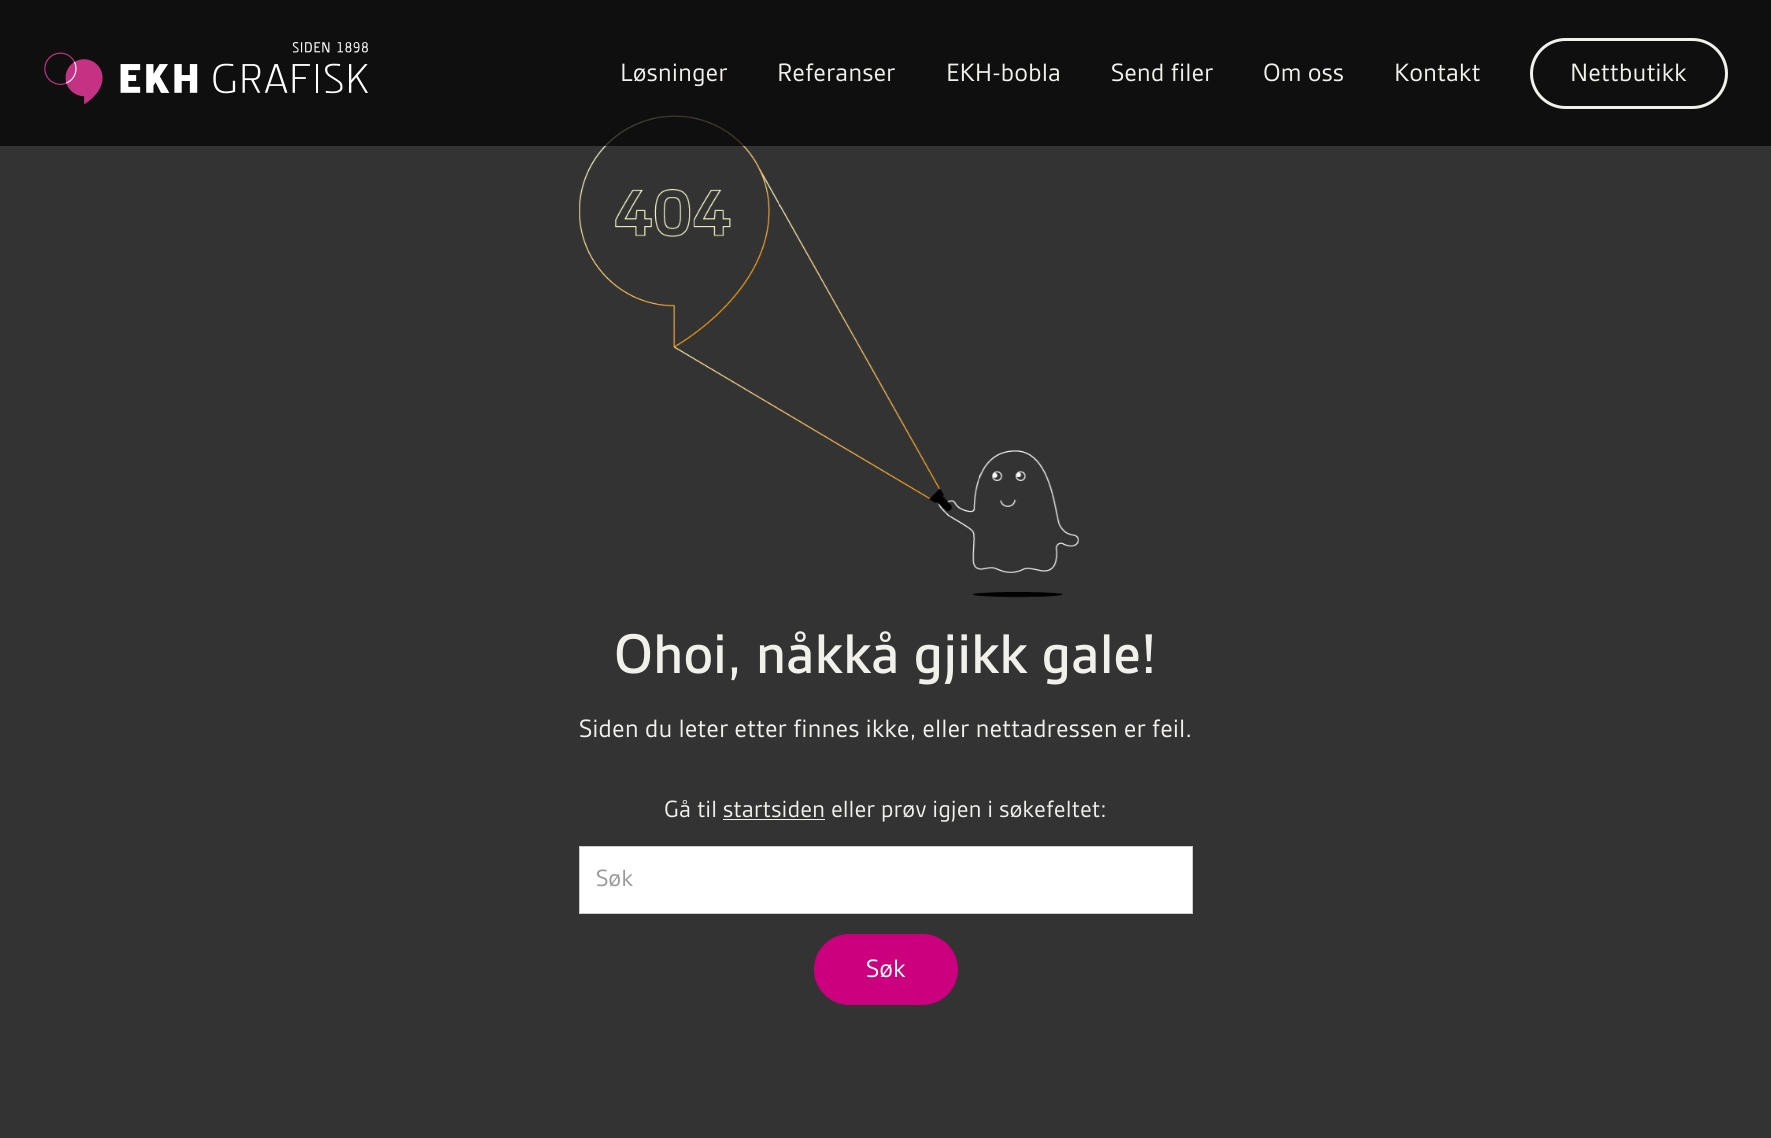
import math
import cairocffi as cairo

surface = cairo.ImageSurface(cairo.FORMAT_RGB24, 1771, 1138)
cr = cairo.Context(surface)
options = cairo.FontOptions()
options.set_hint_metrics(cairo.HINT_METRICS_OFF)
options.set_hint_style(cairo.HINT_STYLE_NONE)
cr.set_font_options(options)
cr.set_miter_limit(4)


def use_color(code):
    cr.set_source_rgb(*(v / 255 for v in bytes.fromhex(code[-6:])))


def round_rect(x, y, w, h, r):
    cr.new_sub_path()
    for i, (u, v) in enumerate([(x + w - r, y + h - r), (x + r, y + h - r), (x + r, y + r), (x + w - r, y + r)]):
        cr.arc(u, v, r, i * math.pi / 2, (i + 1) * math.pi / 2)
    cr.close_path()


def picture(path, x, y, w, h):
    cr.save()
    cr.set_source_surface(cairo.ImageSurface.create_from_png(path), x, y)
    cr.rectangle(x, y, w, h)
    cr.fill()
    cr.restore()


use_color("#333333")
cr.paint()
picture("img2.png", 579, 115, 500, 483)
cr.set_source_rgba(0, 0, 0, 0.7)
cr.rectangle(0, 0, 1771, 146)
cr.fill()
picture("img1.png", 44, 42, 324, 63)
cr.select_font_face("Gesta")
cr.set_font_size(24)
use_color("#f1f0ea")
cr.move_to(620, 81)
cr.show_text("Løsninger")
cr.move_to(777, 81)
cr.show_text("Referanser")
cr.move_to(946, 81)
cr.show_text("EKH-bobla")
cr.move_to(1111, 81)
cr.show_text("Send filer")
cr.move_to(1263, 81)
cr.show_text("Om oss")
cr.move_to(1394, 81)
cr.show_text("Kontakt")
round_rect(1531.5, 39.5, 195, 68, 34)
cr.set_line_width(3)
cr.stroke()
cr.move_to(1570, 81)
cr.show_text("Nettbutikk")
cr.select_font_face("Gesta Medium")
cr.set_font_size(60)
cr.move_to(614, 673)
cr.show_text("Ohoi, nåkkå gjikk gale!")
cr.select_font_face("Gesta")
cr.set_font_size(24)
cr.move_to(579, 737)
cr.show_text("Siden du leter etter finnes ikke, eller nettadressen er feil.")
cr.set_font_size(22.5)
cr.move_to(664, 817)
cr.show_text("Gå til startsiden eller prøv igjen i søkefeltet:")
cr.rectangle(723, 819, 102, 1)
cr.fill()
use_color("#ffffff")
cr.rectangle(579.5, 846.5, 613, 67)
cr.fill_preserve()
use_color("#cccccc")
cr.set_line_width(1)
cr.stroke()
use_color("#999999")
cr.move_to(596, 886)
cr.show_text("Søk")
use_color("#cc007f")
round_rect(815.5, 935.5, 141, 68, 34)
cr.fill_preserve()
cr.set_line_width(3)
cr.stroke()
cr.set_font_size(24)
use_color("#ffffff")
cr.move_to(866, 977)
cr.show_text("Søk")
surface.write_to_png("result.png")
